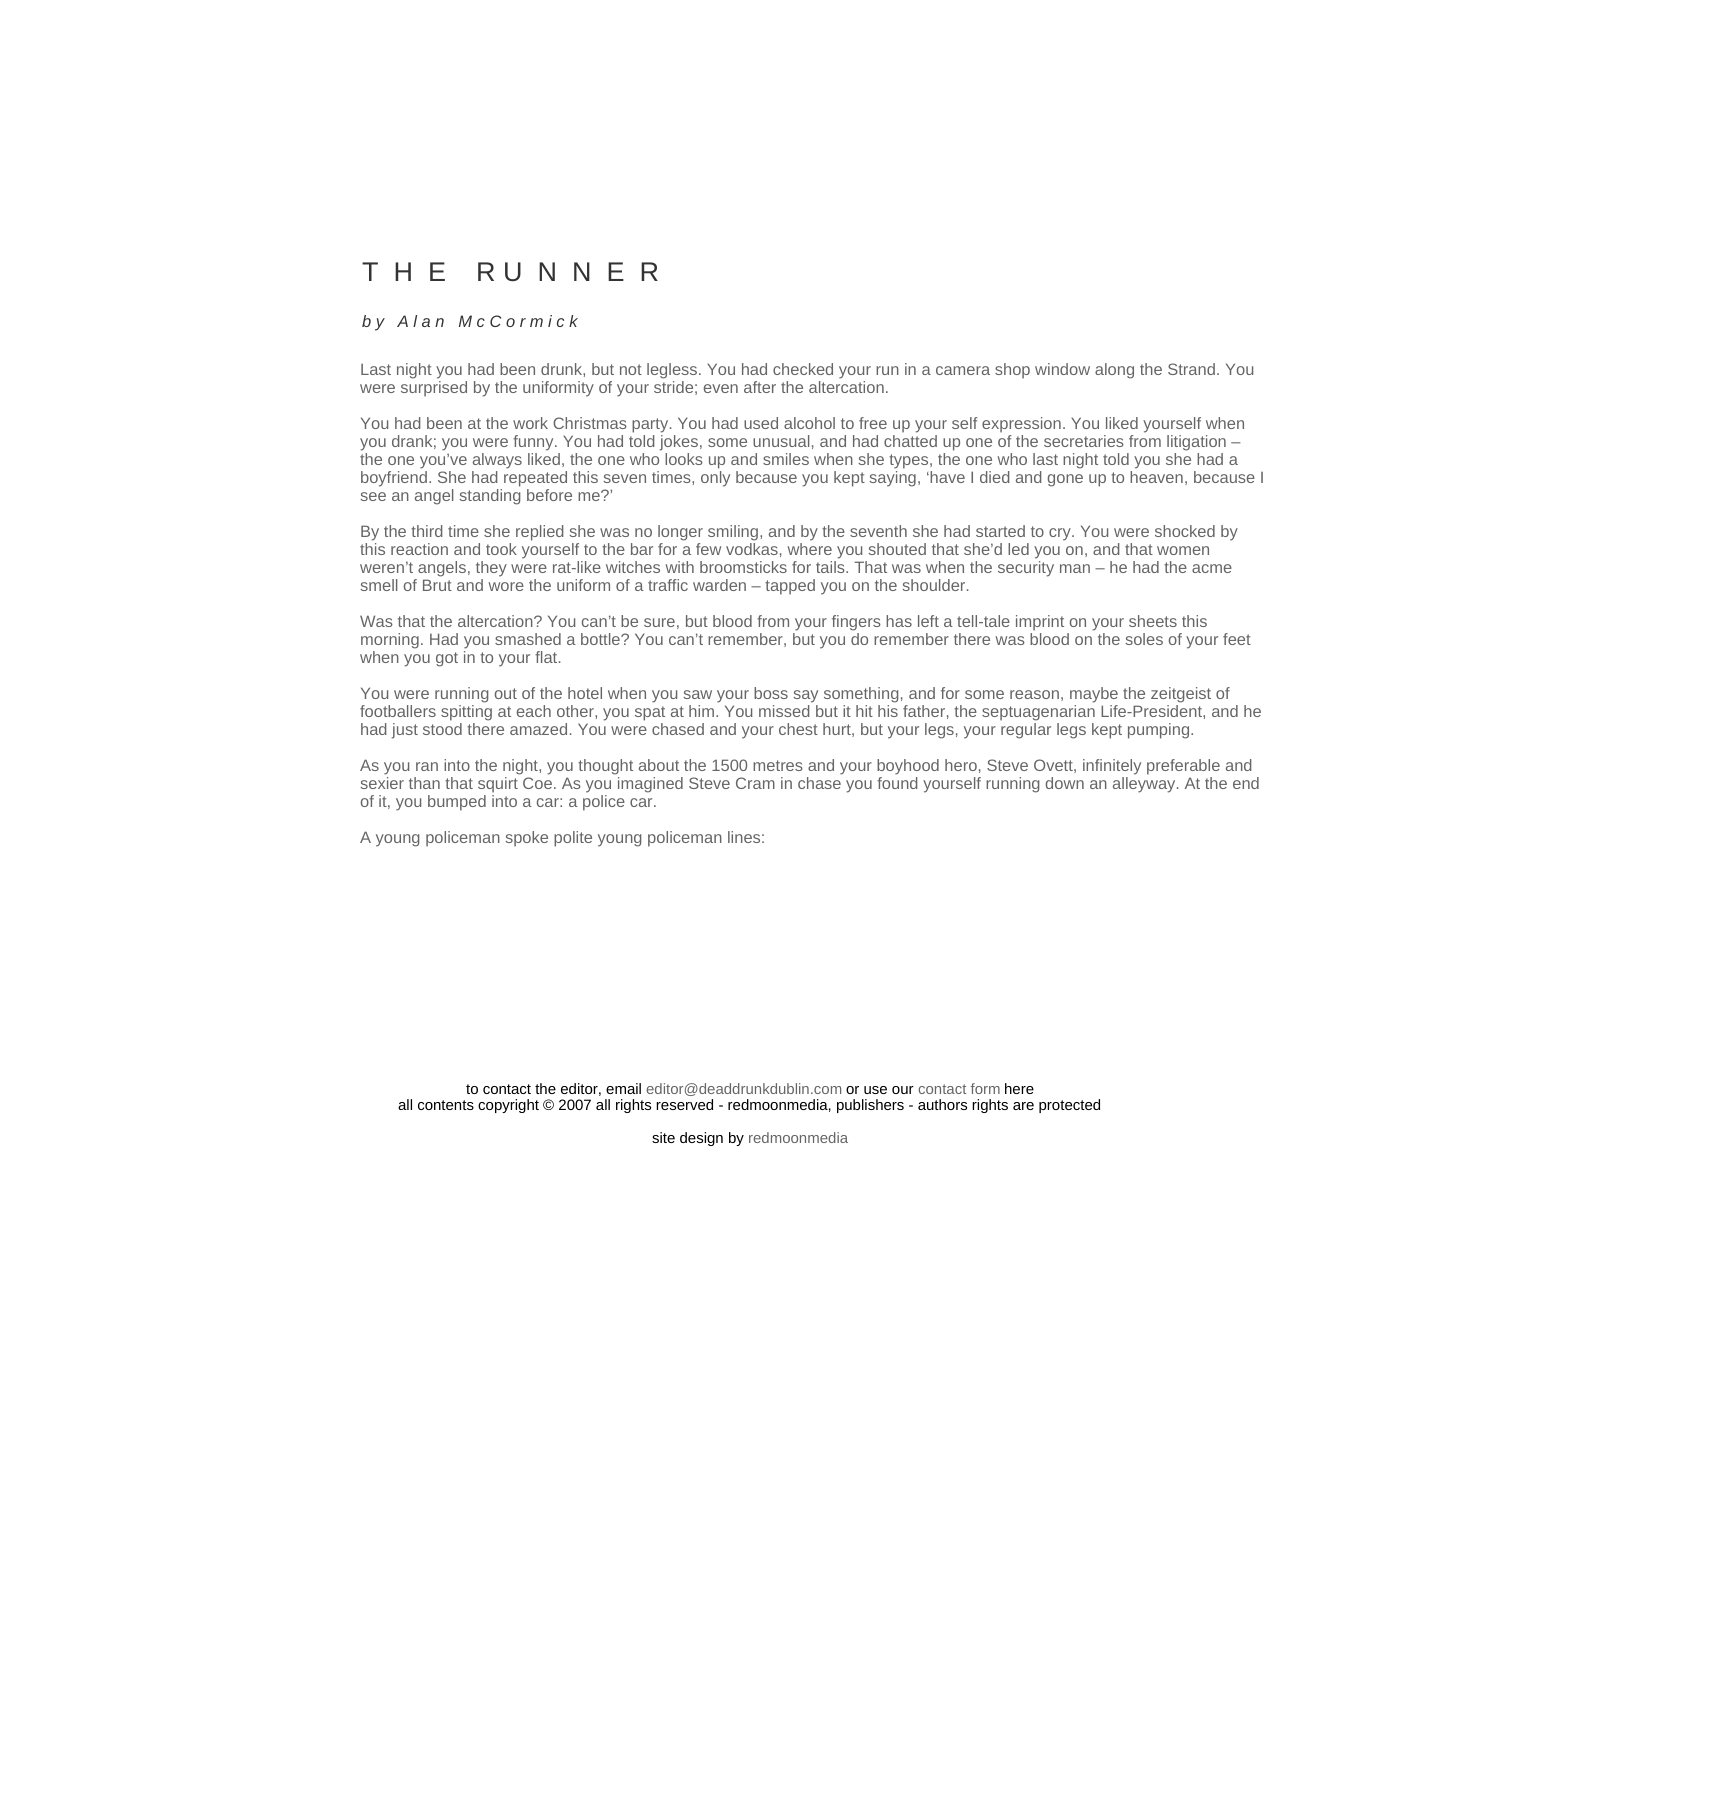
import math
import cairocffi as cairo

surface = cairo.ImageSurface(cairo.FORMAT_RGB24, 1710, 1799)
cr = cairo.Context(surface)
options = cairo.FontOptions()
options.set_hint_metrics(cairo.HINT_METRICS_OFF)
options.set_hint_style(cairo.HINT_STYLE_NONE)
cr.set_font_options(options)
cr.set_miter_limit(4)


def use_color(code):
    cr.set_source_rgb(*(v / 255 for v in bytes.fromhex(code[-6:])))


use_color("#ffffff")
cr.paint()
cr.select_font_face("Liberation Sans")
cr.set_font_size(27)
use_color("#333333")
cr.move_to(362, 281)
cr.show_text("T  H  E    R U  N  N  E  R")
cr.select_font_face("Liberation Sans", cairo.FONT_SLANT_ITALIC)
cr.set_font_size(16.5)
cr.move_to(362, 327)
cr.show_text("b y   A l a n   M c C o r m i c k")
cr.select_font_face("Liberation Sans")
use_color("#666666")
cr.move_to(360, 375)
cr.show_text("Last night you had been drunk, but not legless. You had checked your run in a camera shop window along the Strand. You")
cr.move_to(360, 393)
cr.show_text("were surprised by the uniformity of your stride; even after the altercation.")
cr.move_to(360, 429)
cr.show_text("You had been at the work Christmas party. You had used alcohol to free up your self expression. You liked yourself when")
cr.move_to(360, 447)
cr.show_text("you drank; you were funny. You had told jokes, some unusual, and had chatted up one of the secretaries from litigation –")
cr.move_to(360, 465)
cr.show_text("the one you’ve always liked, the one who looks up and smiles when she types, the one who last night told you she had a")
cr.move_to(360, 483)
cr.show_text("boyfriend. She had repeated this seven times, only because you kept saying, ‘have I died and gone up to heaven, because I")
cr.move_to(360, 501)
cr.show_text("see an angel standing before me?’")
cr.move_to(360, 537)
cr.show_text("By the third time she replied she was no longer smiling, and by the seventh she had started to cry. You were shocked by")
cr.move_to(360, 555)
cr.show_text("this reaction and took yourself to the bar for a few vodkas, where you shouted that she’d led you on, and that women")
cr.move_to(360, 573)
cr.show_text("weren’t angels, they were rat-like witches with broomsticks for tails. That was when the security man – he had the acme")
cr.move_to(360, 591)
cr.show_text("smell of Brut and wore the uniform of a traffic warden – tapped you on the shoulder.")
cr.move_to(360, 627)
cr.show_text("Was that the altercation? You can’t be sure, but blood from your fingers has left a tell-tale imprint on your sheets this")
cr.move_to(360, 645)
cr.show_text("morning. Had you smashed a bottle? You can’t remember, but you do remember there was blood on the soles of your feet")
cr.move_to(360, 663)
cr.show_text("when you got in to your flat.")
cr.move_to(360, 699)
cr.show_text("You were running out of the hotel when you saw your boss say something, and for some reason, maybe the zeitgeist of")
cr.move_to(360, 717)
cr.show_text("footballers spitting at each other, you spat at him. You missed but it hit his father, the septuagenarian Life-President, and he")
cr.move_to(360, 735)
cr.show_text("had just stood there amazed. You were chased and your chest hurt, but your legs, your regular legs kept pumping.")
cr.move_to(360, 771)
cr.show_text("As you ran into the night, you thought about the 1500 metres and your boyhood hero, Steve Ovett, infinitely preferable and")
cr.move_to(360, 789)
cr.show_text("sexier than that squirt Coe. As you imagined Steve Cram in chase you found yourself running down an alleyway. At the end")
cr.move_to(360, 807)
cr.show_text("of it, you bumped into a car: a police car.")
cr.move_to(360, 843)
cr.show_text("A young policeman spoke polite young policeman lines:")
cr.set_font_size(15)
use_color("#000000")
cr.move_to(466, 1094)
cr.show_text("to contact the editor, email")
use_color("#666666")
cr.move_to(646, 1094)
cr.show_text("editor@deaddrunkdublin.com")
use_color("#000000")
cr.move_to(846, 1094)
cr.show_text("or use our")
use_color("#666666")
cr.move_to(918, 1094)
cr.show_text("contact form")
use_color("#000000")
cr.move_to(1004, 1094)
cr.show_text("here")
cr.move_to(398, 1110)
cr.show_text("all contents copyright © 2007 all rights reserved - redmoonmedia, publishers - authors rights are protected")
cr.move_to(652, 1143)
cr.show_text("site design by")
use_color("#666666")
cr.move_to(748, 1143)
cr.show_text("redmoonmedia")
surface.write_to_png("result.png")
